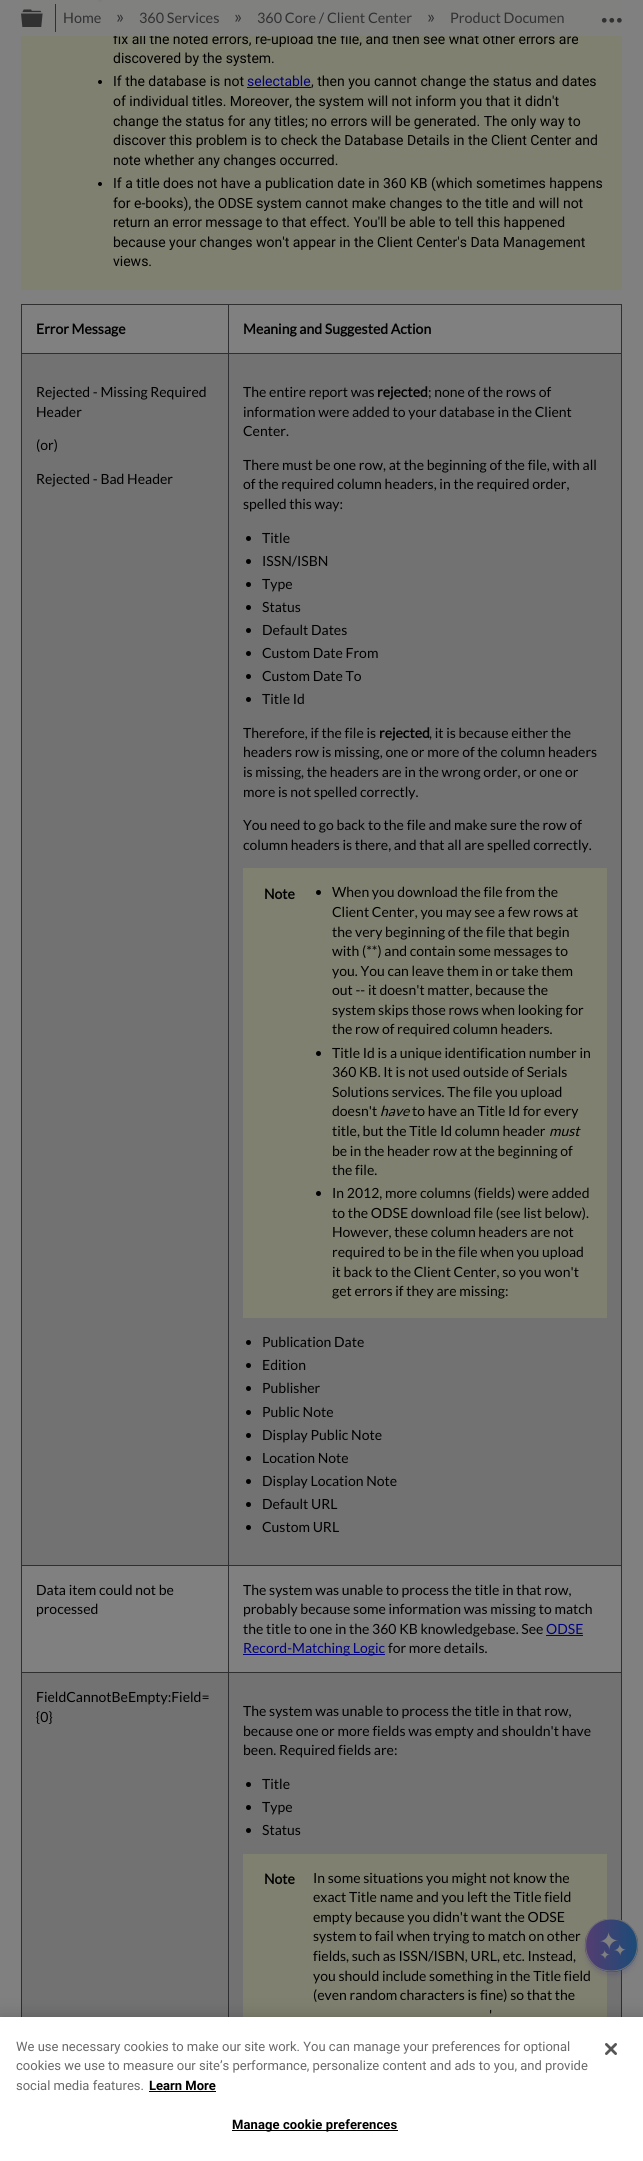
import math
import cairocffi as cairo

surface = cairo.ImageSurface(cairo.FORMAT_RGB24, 643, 2161)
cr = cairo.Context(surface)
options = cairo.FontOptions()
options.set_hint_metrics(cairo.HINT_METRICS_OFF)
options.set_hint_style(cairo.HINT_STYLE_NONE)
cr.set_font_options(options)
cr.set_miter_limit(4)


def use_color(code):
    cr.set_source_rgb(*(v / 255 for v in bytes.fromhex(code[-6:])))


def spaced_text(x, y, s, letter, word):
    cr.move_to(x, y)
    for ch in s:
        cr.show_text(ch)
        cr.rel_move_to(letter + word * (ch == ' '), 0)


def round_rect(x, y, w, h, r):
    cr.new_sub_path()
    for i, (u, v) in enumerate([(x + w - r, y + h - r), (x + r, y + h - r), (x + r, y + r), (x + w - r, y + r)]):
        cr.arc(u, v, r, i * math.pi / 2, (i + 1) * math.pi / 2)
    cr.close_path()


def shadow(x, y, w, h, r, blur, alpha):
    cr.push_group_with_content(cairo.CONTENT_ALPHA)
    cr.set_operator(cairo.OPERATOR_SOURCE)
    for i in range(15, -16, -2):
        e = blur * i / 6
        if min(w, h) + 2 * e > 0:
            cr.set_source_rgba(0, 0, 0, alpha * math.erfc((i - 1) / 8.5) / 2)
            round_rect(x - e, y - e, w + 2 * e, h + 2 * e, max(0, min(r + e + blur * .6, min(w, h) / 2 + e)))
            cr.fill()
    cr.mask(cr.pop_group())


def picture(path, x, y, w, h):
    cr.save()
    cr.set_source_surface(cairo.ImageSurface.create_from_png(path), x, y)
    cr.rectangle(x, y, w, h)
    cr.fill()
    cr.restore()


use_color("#808080")
cr.paint()
use_color("#808070")
cr.rectangle(21, 0, 601, 290)
cr.fill()
use_color("#000000")
cr.arc(100, 0, 2, 0, 2 * math.pi)
cr.fill()
cr.select_font_face("Roboto")
cr.set_font_size(14)
cr.move_to(113, 44)
cr.show_text("fix all the noted errors, re-upload the file, and then see what other errors are")
cr.set_source_rgba(0.502, 0.502, 0.502, 0.97)
cr.rectangle(21, 0, 601, 36)
cr.fill()
picture("img1.png", 21, 9, 22, 18)
cr.set_source_rgba(0.184, 0.18, 0.192, 0.97)
cr.rectangle(55, 4, 1, 28)
cr.fill()
cr.select_font_face("Lato")
cr.set_font_size(14.4)
use_color("#313133")
cr.move_to(63, 23)
cr.show_text("Home")
cr.set_font_size(18)
cr.move_to(116, 23)
cr.show_text("»")
cr.set_font_size(14.4)
cr.move_to(139, 23)
cr.show_text("360 Services")
cr.set_font_size(18)
cr.move_to(234, 23)
cr.show_text("»")
cr.set_font_size(14.4)
cr.move_to(257, 23)
cr.show_text("360 Core / Client Center")
cr.set_font_size(18)
cr.move_to(427, 23)
cr.show_text("»")
cr.set_font_size(14.4)
cr.move_to(450, 23)
cr.show_text("Product Documen")
picture("img2.png", 601, 17, 21, 6)
use_color("#727272")
cr.rectangle(22, 1673, 599, 344)
cr.fill()
use_color("#2f2e31")
cr.rectangle(228, 1672, 394, 1)
cr.fill()
cr.rectangle(621, 1672, 1, 345)
cr.fill()
use_color("#808070")
cr.rectangle(243, 1854, 364, 163)
cr.fill()
use_color("#423c73")
shadow(585, 1923, 53, 53, 25, 2, 0.2)
gradient = cairo.LinearGradient(535, 1945, 586, 1945)
gradient.add_color_stop_rgba(0, 0.329, 0.239, 0.439, 1)
gradient.add_color_stop_rgba(1, 0.106, 0.294, 0.471, 1)
cr.set_source(gradient)
cr.new_path()
cr.move_to(586, 1953.5)
cr.curve_to(584.5, 1948, 584.5, 1942, 586, 1936.5)
cr.close_path()
cr.fill()
cr.set_font_size(14)
use_color("#000000")
cr.move_to(313, 1981)
cr.show_text("you should include something in the Title field")
gradient = cairo.LinearGradient(586, 1945, 637, 1945)
gradient.add_color_stop_rgba(0, 0.329, 0.239, 0.439, 1)
gradient.add_color_stop_rgba(1, 0.106, 0.294, 0.471, 1)
cr.set_source(gradient)
cr.new_path()
cr.move_to(586, 1937)
cr.curve_to(589, 1928, 596, 1921, 606, 1919)
cr.line_to(617, 1919)
cr.curve_to(627, 1921, 634, 1928, 637, 1937)
cr.line_to(637, 1953)
cr.curve_to(634, 1964, 624, 1972, 612, 1972)
cr.curve_to(599, 1972, 589, 1964, 586, 1953)
cr.close_path()
cr.fill()
gradient = cairo.LinearGradient(637, 1945, 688, 1945)
gradient.add_color_stop_rgba(0, 0.329, 0.239, 0.439, 1)
gradient.add_color_stop_rgba(1, 0.106, 0.294, 0.471, 1)
cr.set_source(gradient)
cr.new_path()
cr.move_to(637, 1936.5)
cr.curve_to(638.5, 1942, 638.5, 1948, 637, 1953.5)
cr.close_path()
cr.fill()
cr.new_path()
cr.move_to(611.5, 1919)
cr.curve_to(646, 1919, 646, 1971, 611.5, 1971)
cr.curve_to(577, 1971, 577, 1919, 611.5, 1919)
cr.close_path()
use_color("#727272")
cr.set_line_width(1)
cr.stroke()
picture("img3.png", 600, 1932, 26, 27)
cr.select_font_face("Roboto")
use_color("#000000")
cr.move_to(113, 63)
cr.show_text("discovered by the system.")
cr.new_path()
cr.arc(100, 82, 2, 0, 2 * math.pi)
cr.fill()
cr.move_to(113, 86)
cr.show_text("If the database is not")
use_color("#000080")
cr.move_to(247, 86)
cr.show_text("selectable")
cr.rectangle(247, 87, 64, 1)
cr.fill()
use_color("#000000")
cr.move_to(311, 86)
cr.show_text(", then you cannot change the status and dates")
cr.move_to(113, 106)
cr.show_text("of individual titles. Moreover, the system will not inform you that it didn't")
cr.move_to(113, 126)
cr.show_text("change the status for any titles; no errors will be generated. The only way to")
cr.move_to(113, 145)
cr.show_text("discover this problem is to check the Database Details in the Client Center and")
cr.move_to(113, 165)
cr.show_text("note whether any changes occurred.")
cr.new_path()
cr.arc(100, 184, 2, 0, 2 * math.pi)
cr.fill()
cr.move_to(113, 188)
cr.show_text("If a title does not have a publication date in 360 KB (which sometimes happens")
cr.move_to(113, 208)
cr.show_text("for e-books), the ODSE system cannot make changes to the title and will not")
cr.move_to(113, 227)
cr.show_text("return an error message to that effect. You'll be able to tell this happened")
cr.move_to(113, 247)
cr.show_text("because your changes won't appear in the Client Center's Data Management")
cr.move_to(113, 266)
cr.show_text("views.")
use_color("#2f2e31")
cr.rectangle(228, 304, 394, 1)
cr.fill()
cr.rectangle(228, 353, 394, 1)
cr.fill()
use_color("#727272")
cr.rectangle(22, 354, 599, 1211)
cr.fill()
use_color("#2f2e31")
cr.rectangle(228, 1565, 394, 1)
cr.fill()
cr.rectangle(228, 1672, 1, 345)
cr.fill()
cr.rectangle(21, 1672, 208, 1)
cr.fill()
cr.rectangle(228, 1565, 1, 108)
cr.fill()
cr.rectangle(21, 1565, 208, 1)
cr.fill()
cr.rectangle(228, 353, 1, 1213)
cr.fill()
cr.rectangle(21, 353, 208, 1)
cr.fill()
cr.rectangle(228, 304, 1, 50)
cr.fill()
cr.rectangle(21, 304, 208, 1)
cr.fill()
cr.rectangle(21, 1672, 1, 345)
cr.fill()
cr.rectangle(21, 1565, 1, 108)
cr.fill()
cr.rectangle(21, 353, 1, 1213)
cr.fill()
cr.rectangle(21, 304, 1, 50)
cr.fill()
cr.select_font_face("Lato", cairo.FONT_SLANT_NORMAL, cairo.FONT_WEIGHT_BOLD)
use_color("#000000")
cr.move_to(36, 334)
cr.show_text("Error Message")
use_color("#2f2e31")
cr.rectangle(621, 1565, 1, 108)
cr.fill()
cr.rectangle(621, 353, 1, 1213)
cr.fill()
cr.rectangle(621, 304, 1, 50)
cr.fill()
use_color("#000000")
cr.move_to(243, 334)
cr.show_text("Meaning and Suggested Action")
cr.select_font_face("Lato")
cr.move_to(36, 397)
cr.show_text("Rejected - Missing Required")
cr.move_to(36, 417)
cr.show_text("Header")
cr.move_to(36, 450)
cr.show_text("(or)")
cr.move_to(36, 484)
cr.show_text("Rejected - Bad Header")
cr.move_to(243, 397)
cr.show_text("The entire report was")
cr.select_font_face("Lato", cairo.FONT_SLANT_NORMAL, cairo.FONT_WEIGHT_BOLD)
cr.move_to(377, 397)
cr.show_text("rejected")
cr.select_font_face("Lato")
cr.move_to(428, 397)
cr.show_text("; none of the rows of")
cr.move_to(243, 417)
cr.show_text("information were added to your database in the Client")
cr.move_to(243, 436)
cr.show_text("Center.")
cr.move_to(243, 470)
cr.show_text("There must be one row, at the beginning of the file, with all")
cr.move_to(243, 489)
cr.show_text("of the required column headers, in the required order,")
cr.move_to(243, 509)
cr.show_text("spelled this way:")
cr.new_path()
cr.arc(248.5, 538.5, 2.5, 0, 2 * math.pi)
cr.fill()
cr.move_to(262, 543)
cr.show_text("Title")
cr.new_path()
cr.arc(248.5, 561.5, 2.5, 0, 2 * math.pi)
cr.fill()
cr.move_to(262, 566)
cr.show_text("ISSN/ISBN")
cr.new_path()
cr.arc(248.5, 584.5, 2.5, 0, 2 * math.pi)
cr.fill()
cr.move_to(262, 589)
cr.show_text("Type")
cr.new_path()
cr.arc(248.5, 607.5, 2.5, 0, 2 * math.pi)
cr.fill()
cr.move_to(262, 612)
cr.show_text("Status")
cr.new_path()
cr.arc(248.5, 630.5, 2.5, 0, 2 * math.pi)
cr.fill()
cr.move_to(262, 635)
cr.show_text("Default Dates")
cr.new_path()
cr.arc(248.5, 653.5, 2.5, 0, 2 * math.pi)
cr.fill()
cr.move_to(262, 658)
cr.show_text("Custom Date From")
cr.new_path()
cr.arc(248.5, 676.5, 2.5, 0, 2 * math.pi)
cr.fill()
cr.move_to(262, 681)
cr.show_text("Custom Date To")
cr.new_path()
cr.arc(248.5, 699.5, 2.5, 0, 2 * math.pi)
cr.fill()
cr.move_to(262, 704)
cr.show_text("Title Id")
cr.move_to(243, 738)
cr.show_text("Therefore, if the file is")
cr.select_font_face("Lato", cairo.FONT_SLANT_NORMAL, cairo.FONT_WEIGHT_BOLD)
cr.move_to(379, 738)
cr.show_text("rejected")
cr.select_font_face("Lato")
cr.move_to(429, 738)
cr.show_text(", it is because either the")
cr.move_to(243, 757)
cr.show_text("headers row is missing, one or more of the column headers")
cr.move_to(243, 777)
cr.show_text("is missing, the headers are in the wrong order, or one or")
cr.move_to(243, 797)
cr.show_text("more is not spelled correctly.")
cr.move_to(243, 830)
cr.show_text("You need to go back to the file and make sure the row of")
cr.move_to(243, 850)
cr.show_text("column headers is there, and that all are spelled correctly.")
use_color("#808070")
cr.rectangle(243, 868, 364, 450)
cr.fill()
cr.select_font_face("Lato", cairo.FONT_SLANT_NORMAL, cairo.FONT_WEIGHT_BOLD)
use_color("#000000")
cr.move_to(264, 899)
cr.show_text("Note")
cr.new_path()
cr.arc(318.5, 892.5, 2.5, 0, 2 * math.pi)
cr.fill()
cr.select_font_face("Lato")
cr.move_to(332, 897)
cr.show_text("When you download the file from the")
cr.move_to(332, 917)
cr.show_text("Client Center, you may see a few rows at")
cr.move_to(332, 937)
cr.show_text("the very beginning of the file that begin")
cr.move_to(332, 956)
cr.show_text("with (**) and contain some messages to")
cr.move_to(332, 976)
cr.show_text("you. You can leave them in or take them")
cr.move_to(332, 995)
cr.show_text("out -- it doesn't matter, because the")
cr.move_to(332, 1015)
cr.show_text("system skips those rows when looking for")
cr.move_to(332, 1034)
cr.show_text("the row of required column headers.")
cr.new_path()
cr.arc(318.5, 1053.5, 2.5, 0, 2 * math.pi)
cr.fill()
cr.move_to(332, 1058)
cr.show_text("Title Id is a unique identification number in")
cr.move_to(332, 1077)
cr.show_text("360 KB. It is not used outside of Serials")
cr.move_to(332, 1097)
cr.show_text("Solutions services. The file you upload")
cr.move_to(332, 1116)
cr.show_text("doesn't")
cr.select_font_face("Lato", cairo.FONT_SLANT_ITALIC)
cr.move_to(380, 1116)
cr.show_text("have")
cr.select_font_face("Lato")
cr.move_to(412, 1116)
cr.show_text("to have an Title Id for every")
cr.move_to(332, 1136)
cr.show_text("title, but the Title Id column header")
cr.select_font_face("Lato", cairo.FONT_SLANT_ITALIC)
cr.move_to(549, 1136)
cr.show_text("must")
cr.select_font_face("Lato")
cr.move_to(332, 1156)
cr.show_text("be in the header row at the beginning of")
cr.move_to(332, 1175)
cr.show_text("the file.")
cr.new_path()
cr.arc(318.5, 1193.5, 2.5, 0, 2 * math.pi)
cr.fill()
cr.move_to(332, 1198)
cr.show_text("In 2012, more columns (fields) were added")
cr.move_to(332, 1218)
cr.show_text("to the ODSE download file (see list below).")
cr.move_to(332, 1237)
cr.show_text("However, these column headers are not")
cr.move_to(332, 1257)
cr.show_text("required to be in the file when you upload")
cr.move_to(332, 1277)
cr.show_text("it back to the Client Center, so you won't")
cr.move_to(332, 1296)
cr.show_text("get errors if they are missing:")
cr.new_path()
cr.arc(248.5, 1342.5, 2.5, 0, 2 * math.pi)
cr.fill()
cr.move_to(262, 1347)
cr.show_text("Publication Date")
cr.new_path()
cr.arc(248.5, 1365.5, 2.5, 0, 2 * math.pi)
cr.fill()
cr.move_to(262, 1370)
cr.show_text("Edition")
cr.new_path()
cr.arc(248.5, 1388.5, 2.5, 0, 2 * math.pi)
cr.fill()
cr.move_to(262, 1393)
cr.show_text("Publisher")
cr.new_path()
cr.arc(248.5, 1412.5, 2.5, 0, 2 * math.pi)
cr.fill()
cr.move_to(262, 1417)
cr.show_text("Public Note")
cr.new_path()
cr.arc(248.5, 1435.5, 2.5, 0, 2 * math.pi)
cr.fill()
cr.move_to(262, 1440)
cr.show_text("Display Public Note")
cr.new_path()
cr.arc(248.5, 1458.5, 2.5, 0, 2 * math.pi)
cr.fill()
cr.move_to(262, 1463)
cr.show_text("Location Note")
cr.new_path()
cr.arc(248.5, 1481.5, 2.5, 0, 2 * math.pi)
cr.fill()
cr.move_to(262, 1486)
cr.show_text("Display Location Note")
cr.new_path()
cr.arc(248.5, 1504.5, 2.5, 0, 2 * math.pi)
cr.fill()
cr.move_to(262, 1509)
cr.show_text("Default URL")
cr.new_path()
cr.arc(248.5, 1527.5, 2.5, 0, 2 * math.pi)
cr.fill()
cr.move_to(262, 1532)
cr.show_text("Custom URL")
cr.move_to(36, 1595)
cr.show_text("Data item could not be")
cr.move_to(36, 1614)
cr.show_text("processed")
cr.move_to(243, 1595)
cr.show_text("The system was unable to process the title in that row,")
cr.move_to(243, 1614)
cr.show_text("probably because some information was missing to match")
cr.move_to(243, 1634)
cr.show_text("the title to one in the 360 KB knowledgebase. See")
use_color("#000080")
cr.move_to(546, 1634)
cr.show_text("ODSE")
cr.rectangle(546, 1635, 37, 1)
cr.fill()
cr.rectangle(243, 1654, 142, 1)
cr.fill()
cr.move_to(243, 1653)
cr.show_text("Record-Matching Logic")
use_color("#000000")
cr.move_to(388, 1653)
cr.show_text("for more details.")
cr.move_to(36, 1702)
cr.show_text("FieldCannotBeEmpty:Field=")
cr.move_to(36, 1722)
cr.show_text("{0}")
cr.move_to(243, 1716)
cr.show_text("The system was unable to process the title in that row,")
cr.move_to(243, 1736)
cr.show_text("because one or more fields was empty and shouldn't have")
cr.move_to(243, 1755)
cr.show_text("been. Required fields are:")
cr.new_path()
cr.arc(248.5, 1784.5, 2.5, 0, 2 * math.pi)
cr.fill()
cr.move_to(262, 1789)
cr.show_text("Title")
cr.new_path()
cr.arc(248.5, 1807.5, 2.5, 0, 2 * math.pi)
cr.fill()
cr.move_to(262, 1812)
cr.show_text("Type")
cr.new_path()
cr.arc(248.5, 1830.5, 2.5, 0, 2 * math.pi)
cr.fill()
cr.move_to(262, 1835)
cr.show_text("Status")
cr.select_font_face("Lato", cairo.FONT_SLANT_NORMAL, cairo.FONT_WEIGHT_BOLD)
cr.move_to(264, 1884)
cr.show_text("Note")
cr.select_font_face("Lato")
cr.move_to(313, 1883)
cr.show_text("In some situations you might not know the")
cr.move_to(313, 1902)
cr.show_text("exact Title name and you left the Title field")
cr.move_to(313, 1922)
cr.show_text("empty because you didn't want the ODSE")
cr.move_to(313, 1941)
cr.show_text("system to fail when trying to match on other")
cr.move_to(313, 1961)
cr.show_text("fields, such as ISSN/ISBN, URL, etc. Instead,")
cr.move_to(313, 2000)
cr.show_text("(even random characters is fine) so that the")
cr.move_to(489, 2020)
cr.show_text("'")
use_color("#000000")
shadow(0, 2017, 643, 144, 0, 9, 0.2)
use_color("#ffffff")
cr.rectangle(0, 2017, 643, 144)
cr.fill()
cr.select_font_face("Roboto")
cr.set_font_size(13)
use_color("#696969")
cr.move_to(16, 2051)
cr.show_text("We use necessary cookies to make our site work. You can manage your preferences for optional")
cr.move_to(16, 2070)
cr.show_text("cookies we use to measure our site’s performance, personalize content and ads to you, and provide")
cr.move_to(16, 2090)
cr.show_text("social media features.")
cr.select_font_face("Roboto", cairo.FONT_SLANT_NORMAL, cairo.FONT_WEIGHT_BOLD)
use_color("#000000")
cr.move_to(149, 2090)
cr.show_text("Learn More")
cr.rectangle(149, 2091, 67, 1)
cr.fill()
cr.rectangle(232, 2130, 166, 1)
cr.fill()
spaced_text(232, 2129, "Manage cookie preferences", 0.1, 0)
picture("img4.png", 605, 2043, 12, 12)
surface.write_to_png("result.png")
